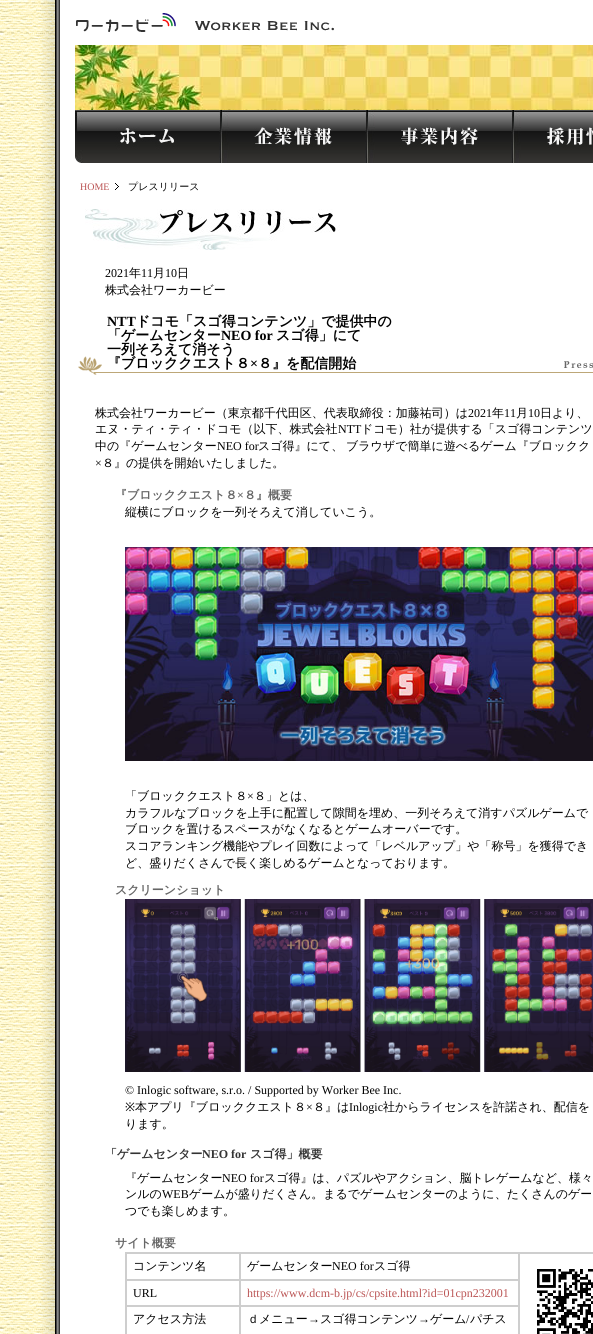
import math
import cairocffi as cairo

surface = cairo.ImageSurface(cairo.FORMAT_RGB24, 593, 1334)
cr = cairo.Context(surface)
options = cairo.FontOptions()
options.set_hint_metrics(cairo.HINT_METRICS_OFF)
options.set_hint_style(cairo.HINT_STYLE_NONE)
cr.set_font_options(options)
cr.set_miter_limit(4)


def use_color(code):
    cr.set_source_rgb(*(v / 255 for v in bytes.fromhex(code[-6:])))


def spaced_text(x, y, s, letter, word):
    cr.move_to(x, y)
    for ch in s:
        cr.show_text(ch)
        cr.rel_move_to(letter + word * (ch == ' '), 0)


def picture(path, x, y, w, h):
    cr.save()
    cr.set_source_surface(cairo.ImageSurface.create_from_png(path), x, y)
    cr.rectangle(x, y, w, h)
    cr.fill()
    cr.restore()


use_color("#ffffff")
cr.paint()
picture("img1.png", 0, 0, 40, 1334)
picture("img2.png", 40, 0, 20, 1334)
picture("img3.png", 76, 13, 258, 19)
picture("img4.png", 75, 45, 518, 65)
picture("img5.png", 75, 110, 146, 53)
picture("img6.png", 221, 110, 146, 53)
picture("img7.png", 367, 110, 146, 53)
picture("img8.png", 513, 110, 80, 53)
cr.select_font_face("Liberation Serif")
cr.set_font_size(10)
use_color("#bb5555")
cr.move_to(80, 190)
cr.show_text("HOME")
picture("img9.png", 115, 183, 4, 7)
cr.select_font_face("WenQuanYi Zen Hei Medium")
use_color("#000000")
cr.move_to(128, 190)
cr.show_text("プレスリリース")
picture("img10.png", 85, 209, 255, 41)
cr.select_font_face("Liberation Serif")
cr.set_font_size(12)
cr.move_to(105, 277)
cr.show_text("2021")
cr.select_font_face("WenQuanYi Zen Hei Medium")
cr.move_to(129, 277)
cr.show_text("年")
cr.select_font_face("Liberation Serif")
cr.move_to(141, 277)
cr.show_text("11")
cr.select_font_face("WenQuanYi Zen Hei Medium")
cr.move_to(153, 277)
cr.show_text("月")
cr.select_font_face("Liberation Serif")
cr.move_to(165, 277)
cr.show_text("10")
cr.select_font_face("WenQuanYi Zen Hei Medium")
cr.move_to(177, 277)
cr.show_text("日")
cr.move_to(105, 294)
cr.show_text("株式会社ワーカービー")
picture("img11.png", 78, 356, 515, 19)
cr.select_font_face("Liberation Serif", cairo.FONT_SLANT_NORMAL, cairo.FONT_WEIGHT_BOLD)
cr.set_font_size(14)
cr.move_to(107, 326)
cr.show_text("NTT")
cr.select_font_face("WenQuanYi Zen Hei", cairo.FONT_SLANT_NORMAL, cairo.FONT_WEIGHT_BOLD)
cr.move_to(136, 326)
cr.show_text("ドコモ「スゴ得コンテンツ」で提供中の")
cr.move_to(107, 340)
cr.show_text("「ゲームセンター")
cr.select_font_face("Liberation Serif", cairo.FONT_SLANT_NORMAL, cairo.FONT_WEIGHT_BOLD)
cr.move_to(221, 340)
cr.show_text("NEO for")
cr.select_font_face("WenQuanYi Zen Hei", cairo.FONT_SLANT_NORMAL, cairo.FONT_WEIGHT_BOLD)
cr.move_to(276, 340)
cr.show_text("スゴ得」にて")
cr.move_to(107, 354)
cr.show_text("一列そろえて消そう")
cr.move_to(107, 368)
cr.show_text("『ブロッククエスト８")
cr.select_font_face("Liberation Serif", cairo.FONT_SLANT_NORMAL, cairo.FONT_WEIGHT_BOLD)
cr.move_to(250, 368)
cr.show_text("×")
cr.select_font_face("WenQuanYi Zen Hei", cairo.FONT_SLANT_NORMAL, cairo.FONT_WEIGHT_BOLD)
cr.move_to(258, 368)
cr.show_text("８』を配信開始")
cr.select_font_face("WenQuanYi Zen Hei Medium")
cr.set_font_size(12)
cr.move_to(95, 417)
cr.show_text("株式会社ワーカービー（東京都千代田区、代表取締役：加藤祐司）は")
cr.select_font_face("Liberation Serif")
cr.move_to(468, 417)
cr.show_text("2021")
cr.select_font_face("WenQuanYi Zen Hei Medium")
cr.move_to(492, 417)
cr.show_text("年")
cr.select_font_face("Liberation Serif")
cr.move_to(504, 417)
cr.show_text("11")
cr.select_font_face("WenQuanYi Zen Hei Medium")
cr.move_to(516, 417)
cr.show_text("月")
cr.select_font_face("Liberation Serif")
cr.move_to(528, 417)
cr.show_text("10")
cr.select_font_face("WenQuanYi Zen Hei Medium")
spaced_text(540, 417, "日より、", 0, -1)
cr.move_to(95, 433)
cr.show_text("エヌ・ティ・ティ・ドコモ（以下、株式会社")
cr.select_font_face("Liberation Serif")
cr.move_to(338, 433)
cr.show_text("NTT")
cr.select_font_face("WenQuanYi Zen Hei Medium")
cr.move_to(361, 433)
cr.show_text("ドコモ）社が提供する「スゴ得コンテンツ")
cr.move_to(95, 450)
cr.show_text("中の『ゲームセンター")
cr.select_font_face("Liberation Serif")
cr.move_to(217, 450)
cr.show_text("NEO for")
cr.select_font_face("WenQuanYi Zen Hei Medium")
cr.move_to(258, 450)
cr.show_text("スゴ得』にて、")
cr.move_to(346, 450)
cr.show_text("ブラウザで簡単に遊べるゲーム『ブロックク")
cr.select_font_face("Liberation Serif")
cr.move_to(95, 467)
cr.show_text("×")
cr.select_font_face("WenQuanYi Zen Hei Medium")
cr.move_to(102, 467)
cr.show_text("８』の提供を開始いたしました。")
cr.select_font_face("WenQuanYi Zen Hei", cairo.FONT_SLANT_NORMAL, cairo.FONT_WEIGHT_BOLD)
use_color("#666666")
cr.move_to(115, 499)
cr.show_text("『ブロッククエスト８")
cr.select_font_face("Liberation Serif", cairo.FONT_SLANT_NORMAL, cairo.FONT_WEIGHT_BOLD)
cr.move_to(237, 499)
cr.show_text("×")
cr.select_font_face("WenQuanYi Zen Hei", cairo.FONT_SLANT_NORMAL, cairo.FONT_WEIGHT_BOLD)
cr.move_to(244, 499)
cr.show_text("８』概要")
cr.select_font_face("WenQuanYi Zen Hei Medium")
use_color("#000000")
cr.move_to(125, 516)
cr.show_text("縦横にブロックを一列そろえて消していこう。")
picture("img12.png", 125, 547, 468, 214)
cr.move_to(125, 800)
cr.show_text("「ブロッククエスト８")
cr.select_font_face("Liberation Serif")
cr.move_to(247, 800)
cr.show_text("×")
cr.select_font_face("WenQuanYi Zen Hei Medium")
cr.move_to(254, 800)
cr.show_text("８」とは、")
cr.move_to(125, 817)
cr.show_text("カラフルなブロックを上手に配置して隙間を埋め、一列そろえて消すパズルゲームで")
cr.move_to(125, 833)
cr.show_text("ブロックを置けるスペースがなくなるとゲームオーバーです。")
cr.move_to(125, 850)
cr.show_text("スコアランキング機能やプレイ回数によって「レベルアップ」や「称号」を獲得でき")
cr.move_to(125, 867)
cr.show_text("ど、盛りだくさんで長く楽しめるゲームとなっております。")
cr.select_font_face("WenQuanYi Zen Hei", cairo.FONT_SLANT_NORMAL, cairo.FONT_WEIGHT_BOLD)
use_color("#666666")
cr.move_to(115, 894)
cr.show_text("スクリーンショット")
picture("img13.png", 125, 899, 468, 173)
cr.select_font_face("Liberation Serif")
use_color("#000000")
cr.move_to(125, 1094)
cr.show_text("© Inlogic software, s.r.o. / Supported by Worker Bee Inc.")
cr.select_font_face("Noto Sans")
cr.move_to(125, 1111)
cr.show_text("※")
cr.select_font_face("WenQuanYi Zen Hei Medium")
cr.move_to(135, 1111)
cr.show_text("本アプリ『ブロッククエスト８")
cr.select_font_face("Liberation Serif")
cr.move_to(306, 1111)
cr.show_text("×")
cr.select_font_face("WenQuanYi Zen Hei Medium")
cr.move_to(313, 1111)
cr.show_text("８』は")
cr.select_font_face("Liberation Serif")
cr.move_to(349, 1111)
cr.show_text("Inlogic")
cr.select_font_face("WenQuanYi Zen Hei Medium")
cr.move_to(383, 1111)
cr.show_text("社からライセンスを許諾され、配信を")
cr.move_to(125, 1128)
cr.show_text("ります。")
cr.select_font_face("WenQuanYi Zen Hei", cairo.FONT_SLANT_NORMAL, cairo.FONT_WEIGHT_BOLD)
use_color("#333333")
cr.move_to(105, 1158)
cr.show_text("「ゲームセンター")
cr.select_font_face("Liberation Serif", cairo.FONT_SLANT_NORMAL, cairo.FONT_WEIGHT_BOLD)
cr.move_to(202, 1158)
cr.show_text("NEO for")
cr.select_font_face("WenQuanYi Zen Hei", cairo.FONT_SLANT_NORMAL, cairo.FONT_WEIGHT_BOLD)
cr.move_to(250, 1158)
cr.show_text("スゴ得」概要")
cr.select_font_face("WenQuanYi Zen Hei Medium")
use_color("#000000")
cr.move_to(125, 1182)
cr.show_text("『ゲームセンター")
cr.select_font_face("Liberation Serif")
cr.move_to(222, 1182)
cr.show_text("NEO for")
cr.select_font_face("WenQuanYi Zen Hei Medium")
cr.move_to(264, 1182)
cr.show_text("スゴ得』は、パズルやアクション、脳トレゲームなど、様々")
cr.move_to(125, 1198)
cr.show_text("ンルの")
cr.select_font_face("Liberation Serif")
cr.move_to(162, 1198)
cr.show_text("WEB")
cr.select_font_face("WenQuanYi Zen Hei Medium")
cr.move_to(189, 1198)
cr.show_text("ゲームが盛りだくさん。まるでゲームセンターのように、たくさんのゲー")
cr.move_to(125, 1215)
cr.show_text("つでも楽しめます。")
cr.select_font_face("WenQuanYi Zen Hei", cairo.FONT_SLANT_NORMAL, cairo.FONT_WEIGHT_BOLD)
use_color("#666666")
cr.move_to(115, 1247)
cr.show_text("サイト概要")
use_color("#cecece")
cr.rectangle(125, 1252, 468, 82)
cr.fill()
use_color("#ffffff")
cr.rectangle(127, 1254, 112, 25)
cr.fill()
cr.select_font_face("WenQuanYi Zen Hei Medium")
use_color("#000000")
cr.move_to(133, 1270)
cr.show_text("コンテンツ名")
use_color("#ffffff")
cr.rectangle(241, 1254, 277, 25)
cr.fill()
use_color("#000000")
cr.move_to(247, 1270)
cr.show_text("ゲームセンター")
cr.select_font_face("Liberation Serif")
cr.move_to(332, 1270)
cr.show_text("NEO for")
cr.select_font_face("WenQuanYi Zen Hei Medium")
cr.move_to(374, 1270)
cr.show_text("スゴ得")
use_color("#ffffff")
cr.rectangle(520, 1254, 73, 80)
cr.fill()
picture("img14.png", 537, 1269, 56, 65)
cr.rectangle(127, 1281, 112, 24)
cr.fill()
cr.select_font_face("Liberation Serif")
use_color("#000000")
cr.move_to(133, 1297)
cr.show_text("URL")
use_color("#ffffff")
cr.rectangle(241, 1281, 277, 24)
cr.fill()
use_color("#bb5555")
cr.move_to(247, 1297)
cr.show_text("https://www.dcm-b.jp/cs/cpsite.html?id=01cpn232001")
use_color("#ffffff")
cr.rectangle(127, 1307, 112, 27)
cr.fill()
cr.select_font_face("WenQuanYi Zen Hei Medium")
use_color("#000000")
cr.move_to(133, 1323)
cr.show_text("アクセス方法")
use_color("#ffffff")
cr.rectangle(241, 1307, 277, 27)
cr.fill()
use_color("#000000")
cr.move_to(247, 1323)
cr.show_text("ｄメニュー")
cr.select_font_face("Liberation Serif")
cr.move_to(308, 1323)
cr.show_text("→")
cr.select_font_face("WenQuanYi Zen Hei Medium")
cr.move_to(320, 1323)
cr.show_text("スゴ得コンテンツ")
cr.select_font_face("Liberation Serif")
cr.move_to(418, 1323)
cr.show_text("→")
cr.select_font_face("WenQuanYi Zen Hei Medium")
cr.move_to(430, 1323)
cr.show_text("ゲーム")
cr.select_font_face("Liberation Serif")
cr.move_to(466, 1323)
cr.show_text("/")
cr.select_font_face("WenQuanYi Zen Hei Medium")
cr.move_to(470, 1323)
cr.show_text("パチス")
surface.write_to_png("result.png")
